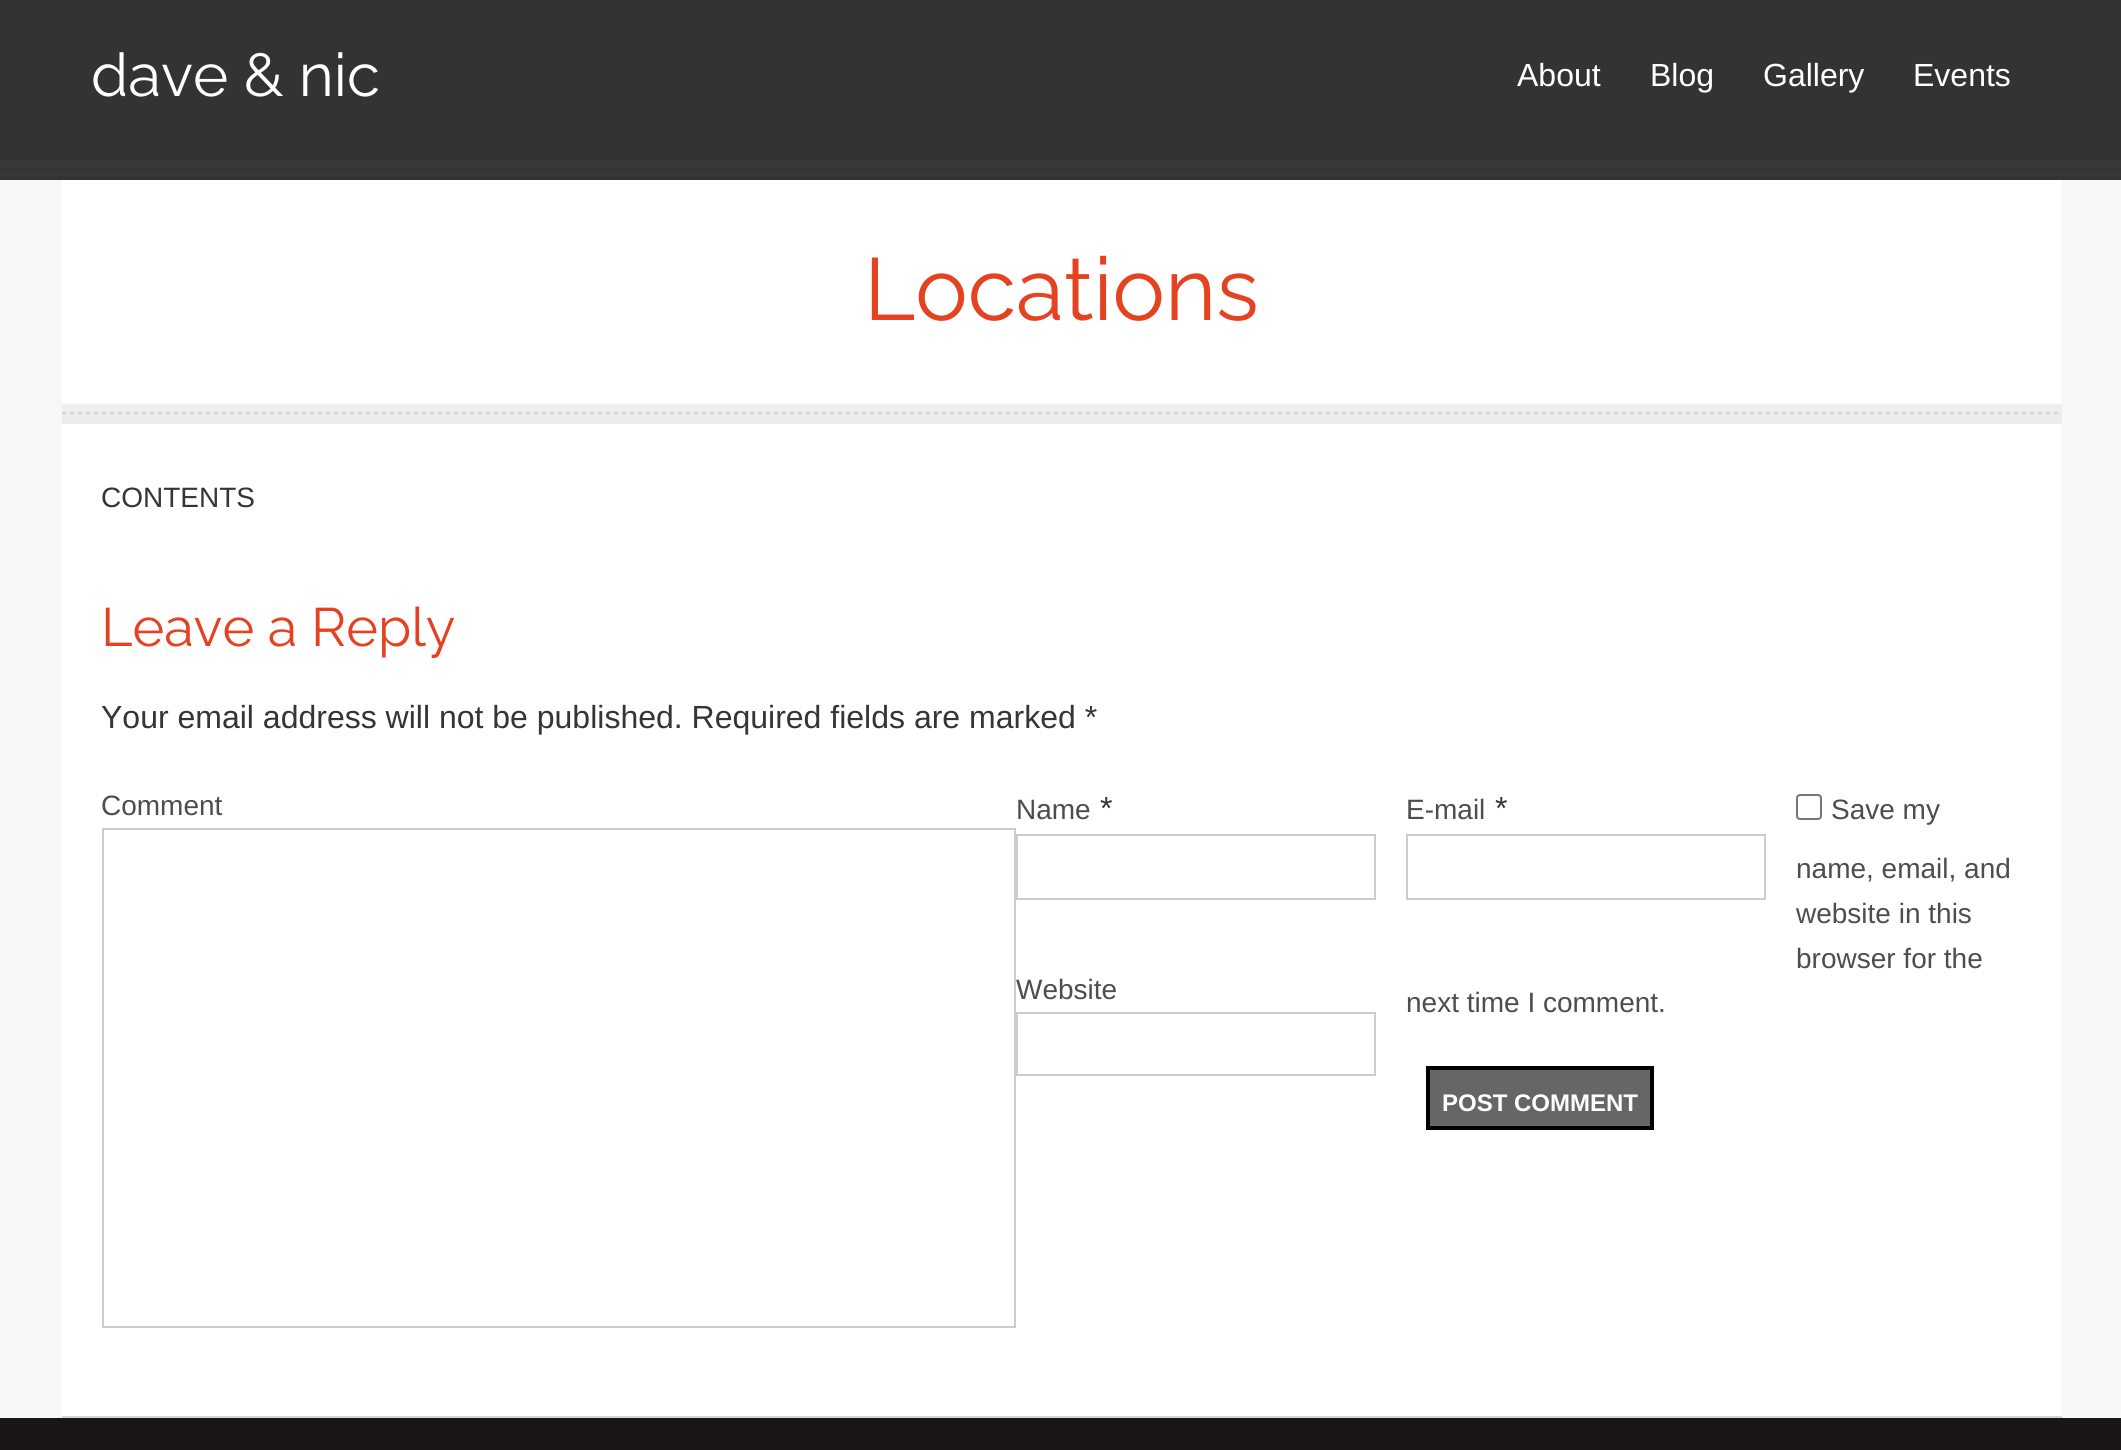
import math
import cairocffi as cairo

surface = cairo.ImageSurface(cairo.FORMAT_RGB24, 2121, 1450)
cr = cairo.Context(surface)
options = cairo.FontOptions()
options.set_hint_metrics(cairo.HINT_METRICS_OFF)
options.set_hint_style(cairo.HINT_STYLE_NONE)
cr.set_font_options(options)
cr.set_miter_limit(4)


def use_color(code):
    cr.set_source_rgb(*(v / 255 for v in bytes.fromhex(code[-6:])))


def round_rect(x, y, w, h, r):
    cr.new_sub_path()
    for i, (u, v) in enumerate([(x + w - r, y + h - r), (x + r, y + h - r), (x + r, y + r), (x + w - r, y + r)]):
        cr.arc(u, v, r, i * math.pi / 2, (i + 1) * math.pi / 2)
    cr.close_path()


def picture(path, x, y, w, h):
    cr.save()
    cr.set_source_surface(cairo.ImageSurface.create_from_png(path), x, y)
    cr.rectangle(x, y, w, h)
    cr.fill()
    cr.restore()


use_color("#f7f7f7")
cr.paint()
use_color("#333333")
cr.rectangle(0, 0, 2121, 180)
cr.fill()
picture("img1.png", 0, 160, 2121, 16)
cr.select_font_face("Raleway Thin")
cr.set_font_size(60)
use_color("#ffffff")
cr.move_to(91, 96)
cr.show_text("dave & nic")
cr.select_font_face("Liberation Sans")
cr.set_font_size(32)
cr.move_to(1517, 86)
cr.show_text("About")
cr.move_to(1650, 86)
cr.show_text("Blog")
cr.move_to(1763, 86)
cr.show_text("Gallery")
cr.move_to(1913, 86)
cr.show_text("Events")
cr.rectangle(62, 180, 2000, 1236)
cr.fill()
picture("img2.png", 62, 403, 2000, 21)
cr.select_font_face("Raleway Thin")
cr.set_font_size(88)
use_color("#e54222")
cr.move_to(864, 320)
cr.show_text("Locations")
use_color("#d5d5d5")
cr.rectangle(62, 1416, 2000, 2)
cr.fill()
cr.select_font_face("Liberation Sans")
cr.set_font_size(28)
use_color("#353535")
cr.move_to(101, 507)
cr.show_text("CONTENTS")
cr.select_font_face("Raleway Thin")
cr.set_font_size(54)
use_color("#e54222")
cr.move_to(101, 646)
cr.show_text("Leave a Reply")
cr.select_font_face("Liberation Sans")
cr.set_font_size(32)
use_color("#353535")
cr.move_to(101, 728)
cr.show_text("Your email address will not be published. Required fields are marked *")
cr.set_font_size(28)
use_color("#4d4d4d")
cr.move_to(101, 815)
cr.show_text("Comment")
cr.rectangle(103, 829, 912, 498)
use_color("#cccccc")
cr.stroke()
use_color("#4d4d4d")
cr.move_to(1016, 819)
cr.show_text("Name")
cr.set_font_size(32)
use_color("#353535")
cr.move_to(1100, 819)
cr.show_text("*")
cr.rectangle(1017, 835, 358, 64)
use_color("#cccccc")
cr.stroke()
cr.set_font_size(28)
use_color("#4d4d4d")
cr.move_to(1406, 819)
cr.show_text("E-mail")
cr.set_font_size(32)
use_color("#353535")
cr.move_to(1495, 819)
cr.show_text("*")
cr.rectangle(1407, 835, 358, 64)
use_color("#cccccc")
cr.stroke()
cr.set_font_size(28)
use_color("#4d4d4d")
cr.move_to(1016, 999)
cr.show_text("Website")
cr.rectangle(1017, 1013, 358, 62)
use_color("#cccccc")
cr.stroke()
round_rect(1797, 795, 24, 24, 3)
use_color("#767676")
cr.stroke()
use_color("#4d4d4d")
cr.move_to(1831, 819)
cr.show_text("Save my")
cr.move_to(1796, 878)
cr.show_text("name, email, and")
cr.move_to(1796, 923)
cr.show_text("website in this")
cr.move_to(1796, 968)
cr.show_text("browser for the")
cr.move_to(1406, 1012)
cr.show_text("next time I comment.")
use_color("#666666")
cr.rectangle(1428, 1068, 224, 60)
cr.fill_preserve()
use_color("#000000")
cr.set_line_width(4)
cr.stroke()
cr.select_font_face("Liberation Sans", cairo.FONT_SLANT_NORMAL, cairo.FONT_WEIGHT_BOLD)
cr.set_font_size(24)
use_color("#ffffff")
cr.move_to(1442, 1111)
cr.show_text("POST COMMENT")
use_color("#191615")
cr.rectangle(0, 1418, 2121, 32)
cr.fill()
surface.write_to_png("result.png")
